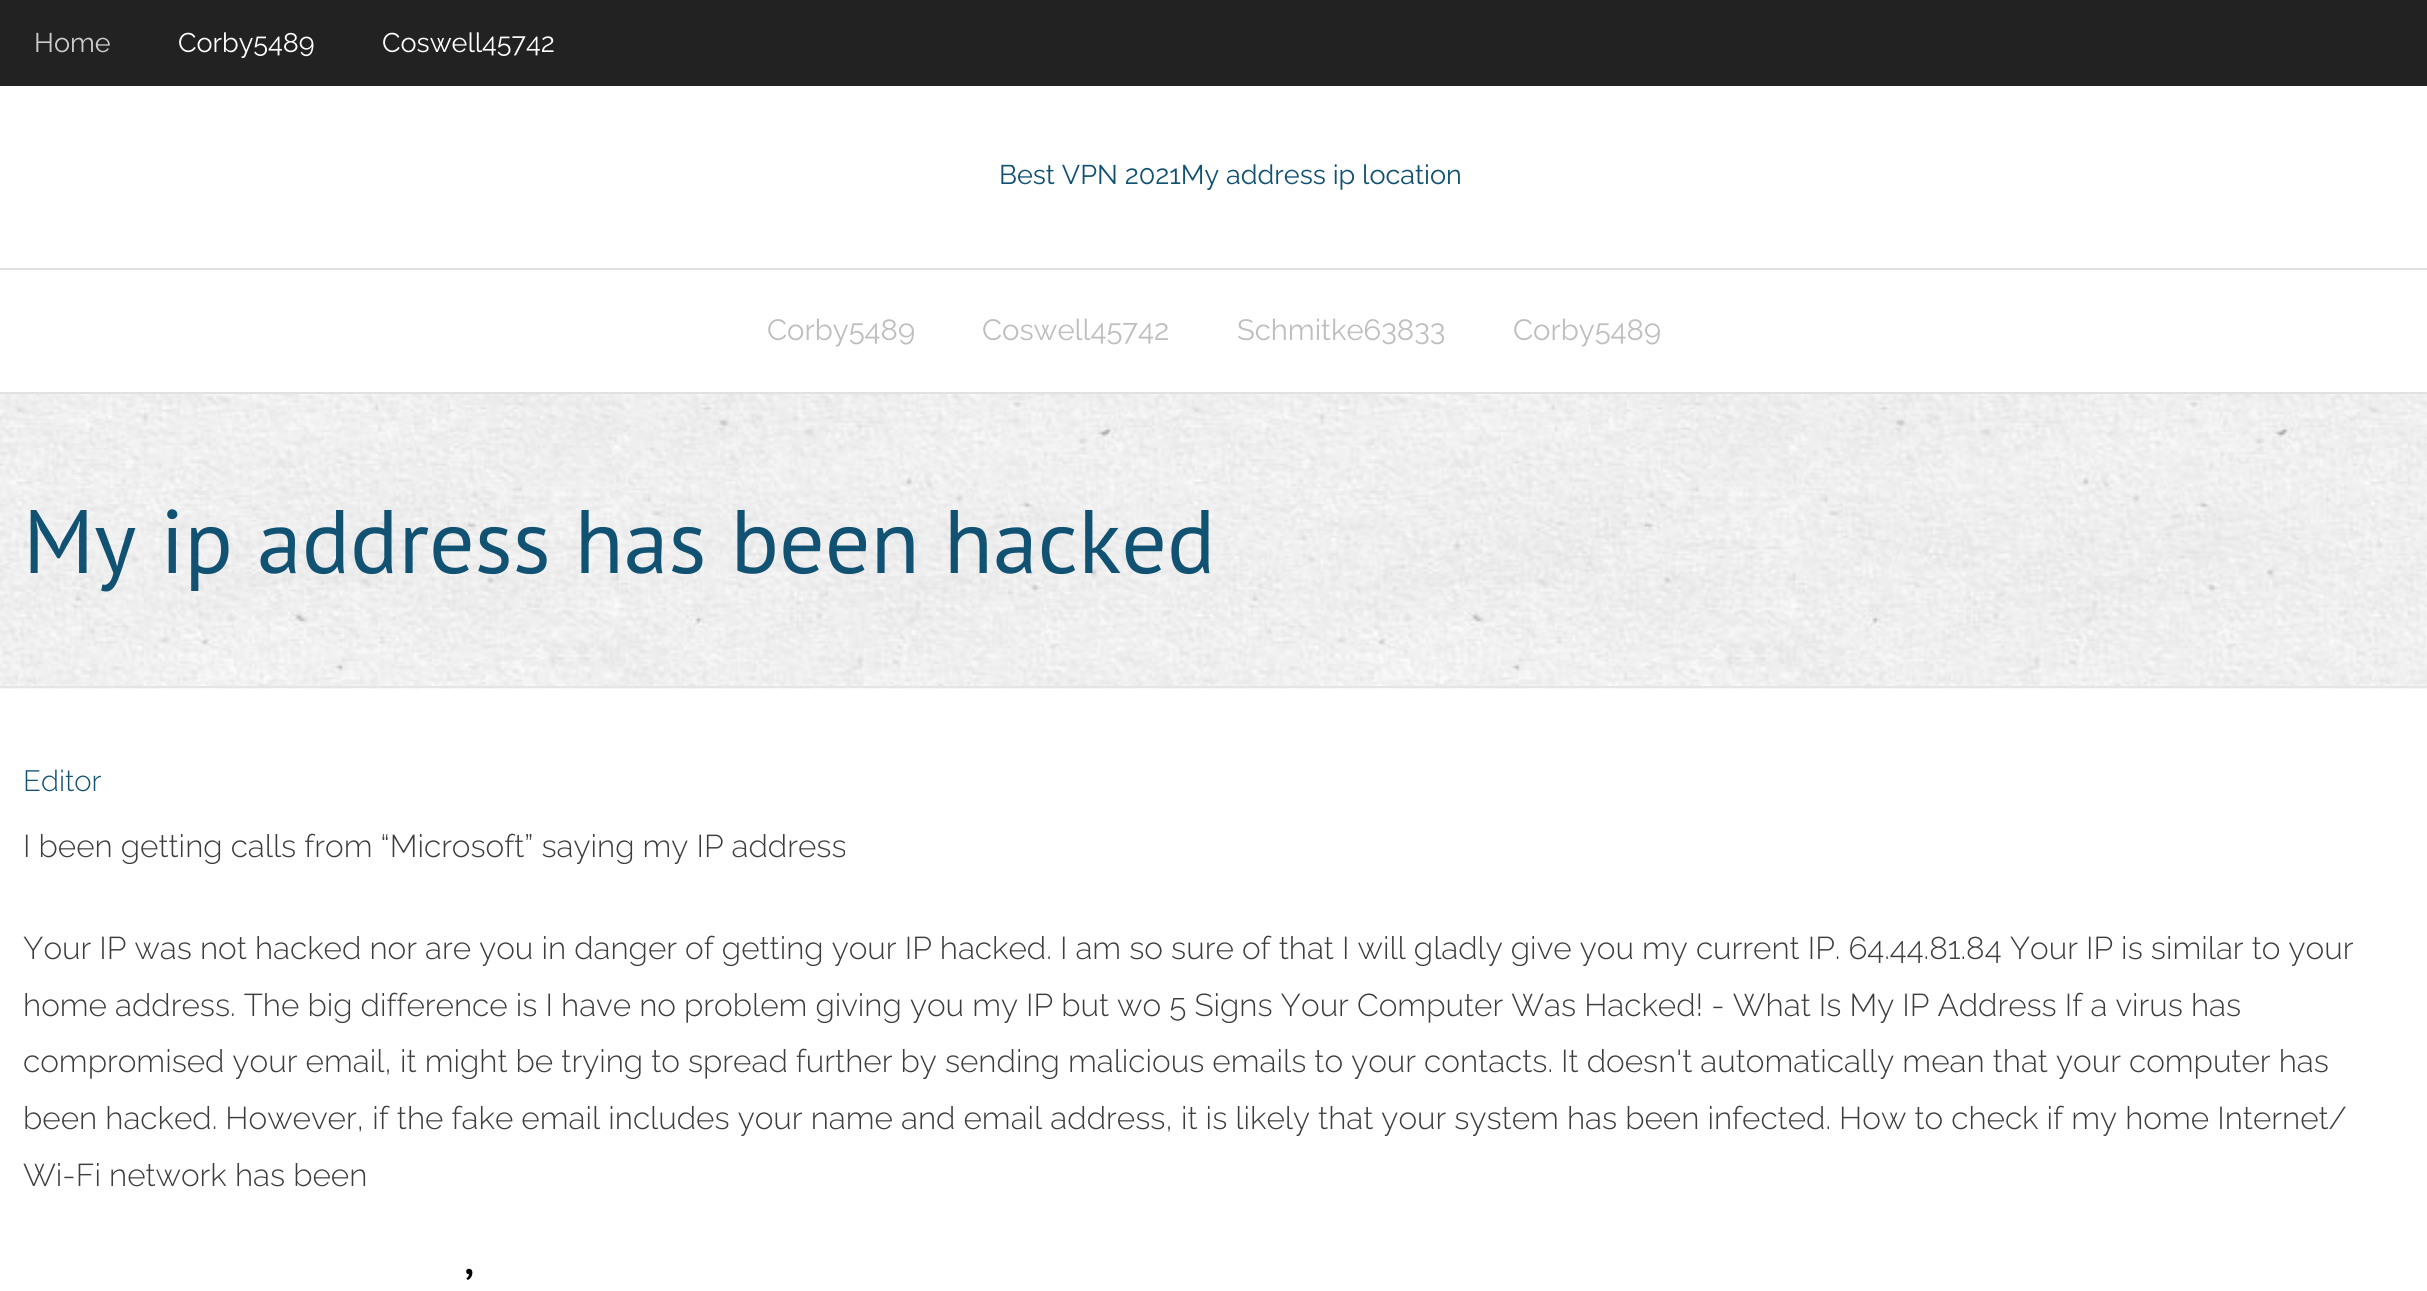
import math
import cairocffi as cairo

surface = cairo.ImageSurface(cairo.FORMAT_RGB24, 2427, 1291)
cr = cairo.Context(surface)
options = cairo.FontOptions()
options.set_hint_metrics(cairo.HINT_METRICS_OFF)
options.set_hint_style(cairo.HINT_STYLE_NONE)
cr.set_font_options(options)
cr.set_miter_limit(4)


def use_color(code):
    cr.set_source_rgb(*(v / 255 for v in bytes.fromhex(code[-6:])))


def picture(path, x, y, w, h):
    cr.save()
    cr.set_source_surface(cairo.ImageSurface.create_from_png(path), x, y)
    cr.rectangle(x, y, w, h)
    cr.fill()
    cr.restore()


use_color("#ffffff")
cr.paint()
use_color("#222222")
cr.rectangle(0, 0, 2427, 86)
cr.fill()
cr.select_font_face("Raleway")
cr.set_font_size(27)
use_color("#cccccc")
cr.move_to(34, 52)
cr.show_text("Home")
use_color("#ffffff")
cr.move_to(178, 52)
cr.show_text("Corby5489")
cr.move_to(382, 52)
cr.show_text("Coswell45742")
use_color("#115172")
cr.move_to(999, 184)
cr.show_text("Best VPN 2021My address ip location")
use_color("#e1e1e1")
cr.rectangle(0, 268, 2427, 2)
cr.fill()
cr.rectangle(0, 392, 2427, 2)
cr.fill()
cr.set_font_size(29.25)
use_color("#bebebe")
cr.move_to(767, 340)
cr.show_text("Corby5489")
cr.move_to(982, 340)
cr.show_text("Coswell45742")
cr.move_to(1237, 340)
cr.show_text("Schmitke63833")
cr.move_to(1513, 340)
cr.show_text("Corby5489")
picture("img1.png", 0, 394, 2427, 295)
use_color("#e5e5e5")
cr.rectangle(0, 686, 2427, 2)
cr.fill()
cr.select_font_face("PT Sans")
cr.set_font_size(90)
use_color("#115172")
cr.move_to(23, 573)
cr.show_text("My ip address has been hacked")
cr.select_font_face("Raleway Light")
cr.set_font_size(29.25)
cr.move_to(23, 791)
cr.show_text("Editor")
cr.set_font_size(31.5)
use_color("#3d3d3d")
cr.move_to(23, 857)
cr.show_text("I been getting calls from “Microsoft” saying my IP address")
cr.move_to(23, 959)
cr.show_text("Your IP was not hacked nor are you in danger of getting your IP hacked. I am so sure of that I will gladly give you my current IP. 64.44.81.84 Your IP is similar to your")
cr.move_to(23, 1016)
cr.show_text("home address. The big difference is I have no problem giving you my IP but wo 5 Signs Your Computer Was Hacked! - What Is My IP Address If a virus has")
cr.move_to(23, 1072)
cr.show_text("compromised your email, it might be trying to spread further by sending malicious emails to your contacts. It doesn't automatically mean that your computer has")
cr.move_to(23, 1129)
cr.show_text("been hacked. However, if the fake email includes your name and email address, it is likely that your system has been infected. How to check if my home Internet/")
cr.move_to(23, 1186)
cr.show_text("Wi-Fi network has been")
cr.select_font_face("PT Sans")
cr.set_font_size(54)
use_color("#000000")
cr.move_to(464, 1307)
cr.show_text("’")
surface.write_to_png("result.png")
